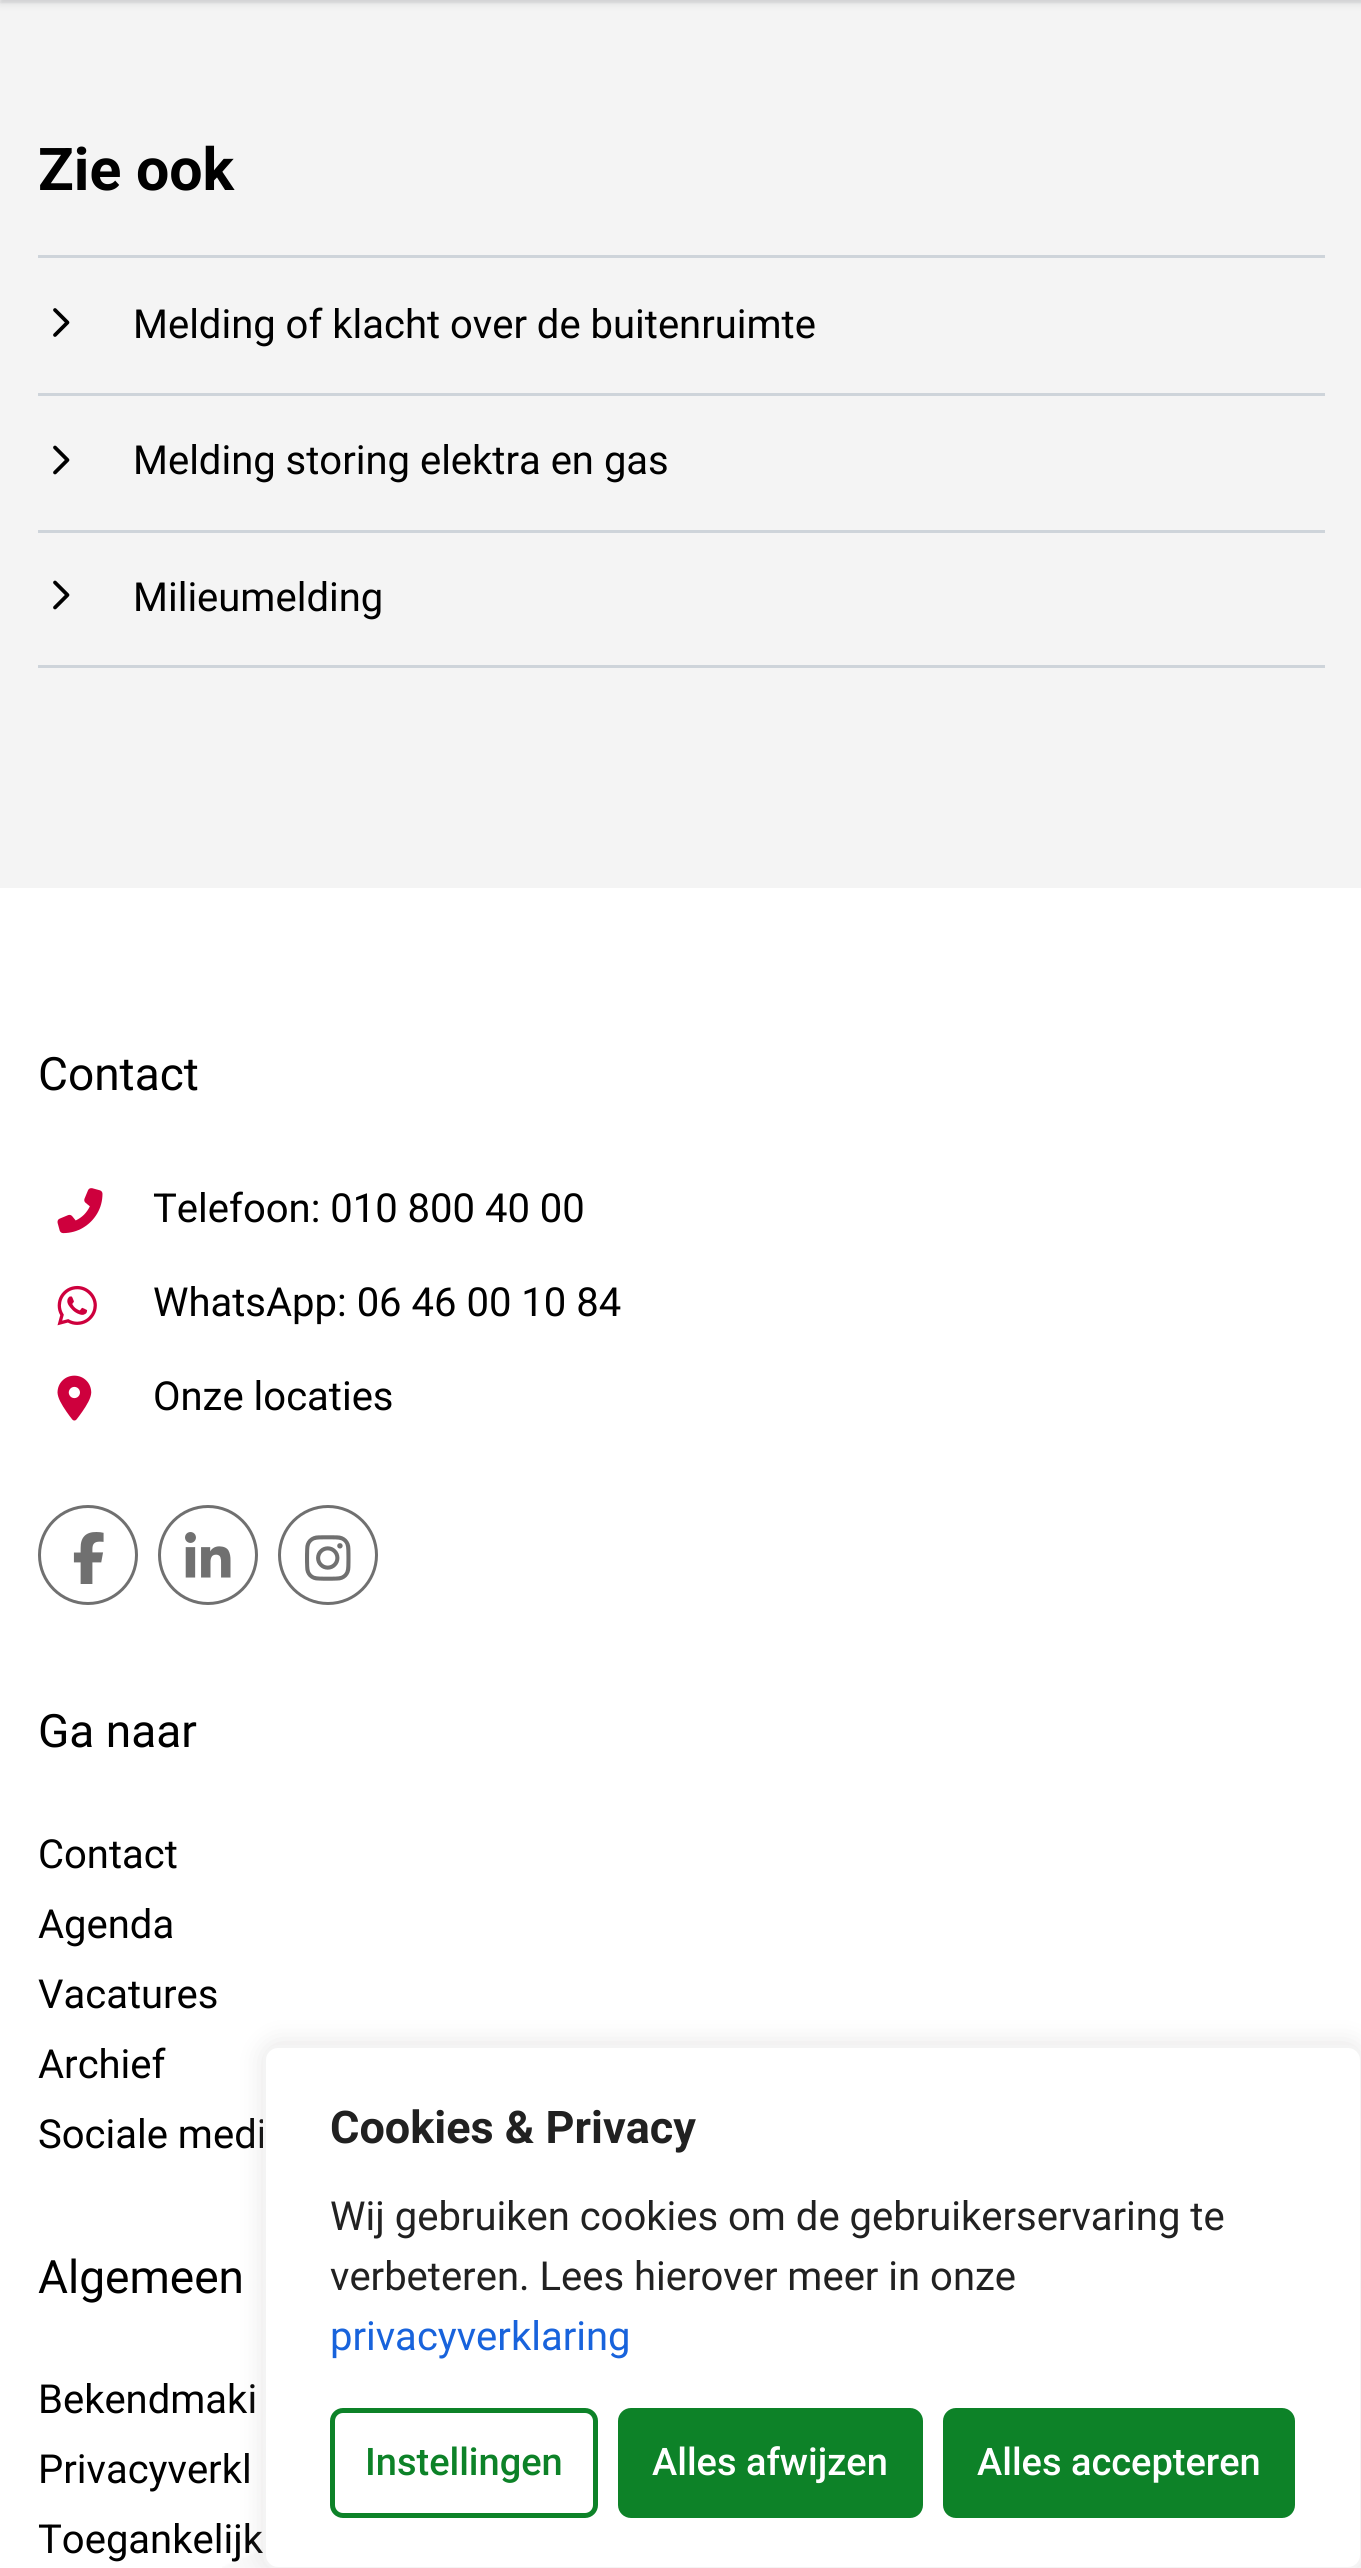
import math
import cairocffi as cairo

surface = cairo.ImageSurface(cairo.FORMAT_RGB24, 1361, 2568)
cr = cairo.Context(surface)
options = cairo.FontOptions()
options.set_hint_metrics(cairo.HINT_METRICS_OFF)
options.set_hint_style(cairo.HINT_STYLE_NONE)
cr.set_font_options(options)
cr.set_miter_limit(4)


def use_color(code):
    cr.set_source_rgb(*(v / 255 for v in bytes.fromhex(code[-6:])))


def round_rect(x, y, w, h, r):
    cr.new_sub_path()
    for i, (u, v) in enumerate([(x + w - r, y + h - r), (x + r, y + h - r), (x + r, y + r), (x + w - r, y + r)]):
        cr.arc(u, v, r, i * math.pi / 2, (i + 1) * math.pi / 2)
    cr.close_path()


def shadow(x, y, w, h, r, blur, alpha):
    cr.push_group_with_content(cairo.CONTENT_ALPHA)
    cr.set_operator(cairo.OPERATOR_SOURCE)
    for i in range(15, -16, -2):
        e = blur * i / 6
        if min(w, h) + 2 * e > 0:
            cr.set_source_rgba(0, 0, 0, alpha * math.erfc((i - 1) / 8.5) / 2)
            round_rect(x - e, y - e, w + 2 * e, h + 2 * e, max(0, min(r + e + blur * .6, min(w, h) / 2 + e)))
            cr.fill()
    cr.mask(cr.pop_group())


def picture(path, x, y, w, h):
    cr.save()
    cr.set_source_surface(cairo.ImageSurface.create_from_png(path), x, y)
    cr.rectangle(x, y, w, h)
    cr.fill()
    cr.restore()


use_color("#f4f4f4")
cr.paint()
use_color("#282c35")
shadow(0, -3, 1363, 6, 0, 1, 0.1)
shadow(0, -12, 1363, 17, 0, 4, 0.08)
cr.select_font_face("Roboto", cairo.FONT_SLANT_NORMAL, cairo.FONT_WEIGHT_BOLD)
cr.set_font_size(59)
use_color("#000000")
cr.move_to(38, 190)
cr.show_text("Zie ook")
use_color("#ced4da")
cr.rectangle(38, 255, 1287, 3)
cr.fill()
cr.rectangle(38, 393, 1287, 3)
cr.fill()
picture("img1.png", 53, 308, 17, 29)
cr.select_font_face("Roboto")
cr.set_font_size(40)
use_color("#000000")
cr.move_to(133, 338)
cr.show_text("Melding of klacht over de buitenruimte")
use_color("#ced4da")
cr.rectangle(38, 530, 1287, 3)
cr.fill()
picture("img2.png", 53, 445, 17, 30)
use_color("#000000")
cr.move_to(133, 474)
cr.show_text("Melding storing elektra en gas")
use_color("#ced4da")
cr.rectangle(38, 665, 1287, 3)
cr.fill()
picture("img2.png", 53, 580, 17, 30)
use_color("#000000")
cr.move_to(133, 611)
cr.show_text("Milieumelding")
use_color("#ffffff")
cr.rectangle(0, 888, 1361, 1680)
cr.fill()
cr.set_font_size(46)
use_color("#000000")
cr.move_to(38, 1090)
cr.show_text("Contact")
picture("img3.png", 57, 1188, 46, 46)
cr.set_font_size(40)
cr.move_to(153, 1222)
cr.show_text("Telefoon: 010 800 40 00")
picture("img4.png", 57, 1285, 40, 41)
cr.move_to(153, 1316)
cr.show_text("WhatsApp: 06 46 00 10 84")
picture("img5.png", 57, 1375, 35, 46)
cr.move_to(153, 1410)
cr.show_text("Onze locaties")
cr.new_path()
cr.arc(88, 1555, 48.5, 0, 2 * math.pi)
use_color("#707070")
cr.set_line_width(3)
cr.stroke()
picture("img6.png", 73, 1532, 31, 52)
cr.arc(208, 1555, 48.5, 0, 2 * math.pi)
cr.stroke()
picture("img7.png", 185, 1532, 46, 46)
cr.arc(328, 1555, 48.5, 0, 2 * math.pi)
cr.stroke()
picture("img8.png", 305, 1535, 46, 46)
cr.set_font_size(46)
use_color("#000000")
cr.move_to(38, 1747)
cr.show_text("Ga naar")
cr.set_font_size(40)
cr.move_to(38, 1868)
cr.show_text("Contact")
cr.move_to(38, 1938)
cr.show_text("Agenda")
cr.move_to(38, 2008)
cr.show_text("Vacatures")
cr.move_to(38, 2078)
cr.show_text("Archief")
cr.move_to(38, 2148)
cr.show_text("Sociale medi")
cr.set_font_size(46)
cr.move_to(38, 2293)
cr.show_text("Algemeen")
cr.set_font_size(40)
cr.move_to(38, 2413)
cr.show_text("Bekendmaki")
cr.move_to(38, 2483)
cr.show_text("Privacyverkl")
picture("img9.png", 222, 2546, 1139, 22)
cr.move_to(38, 2553)
cr.show_text("Toegankelijk")
use_color("#acabab")
shadow(263, 2043, 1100, 525, 15, 12.5, 0.3)
use_color("#ffffff")
round_rect(264.5, 2046.5, 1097, 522, 13.5)
cr.fill_preserve()
use_color("#f4f4f4")
cr.stroke()
cr.select_font_face("Roboto", cairo.FONT_SLANT_NORMAL, cairo.FONT_WEIGHT_BOLD)
cr.set_font_size(45)
use_color("#212121")
cr.move_to(330, 2143)
cr.show_text("Cookies & Privacy")
cr.select_font_face("Roboto")
cr.set_font_size(40)
cr.move_to(330, 2230)
cr.show_text("Wij gebruiken cookies om de gebruikerservaring te")
cr.move_to(330, 2290)
cr.show_text("verbeteren. Lees hierover meer in onze")
use_color("#1863dc")
cr.move_to(330, 2350)
cr.show_text("privacyverklaring")
round_rect(332.5, 2410.5, 263, 105, 10.5)
use_color("#0d8228")
cr.set_line_width(5)
cr.stroke()
cr.select_font_face("Roboto Medium")
cr.set_font_size(38)
cr.move_to(365, 2475)
cr.show_text("Instellingen")
round_rect(620.5, 2410.5, 300, 105, 10.5)
cr.fill_preserve()
cr.stroke()
use_color("#ffffff")
cr.move_to(652, 2475)
cr.show_text("Alles afwijzen")
use_color("#0d8228")
round_rect(945.5, 2410.5, 347, 105, 10.5)
cr.fill_preserve()
cr.stroke()
use_color("#ffffff")
cr.move_to(977, 2475)
cr.show_text("Alles accepteren")
surface.write_to_png("result.png")
